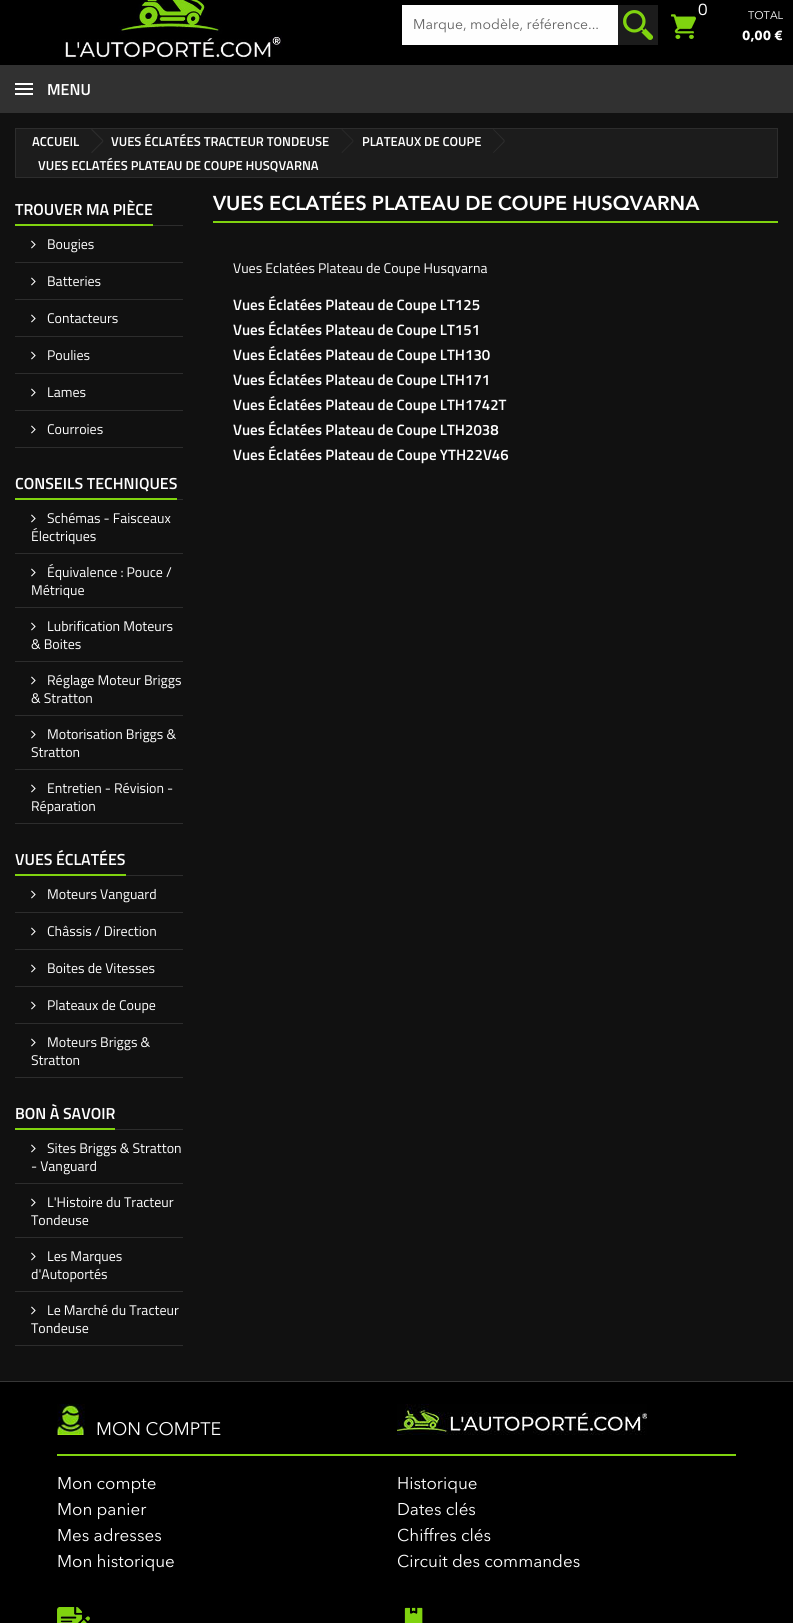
import math
import cairocffi as cairo

surface = cairo.ImageSurface(cairo.FORMAT_RGB24, 793, 1623)
cr = cairo.Context(surface)
options = cairo.FontOptions()
options.set_hint_metrics(cairo.HINT_METRICS_OFF)
options.set_hint_style(cairo.HINT_STYLE_NONE)
cr.set_font_options(options)
cr.set_miter_limit(4)


def use_color(code):
    cr.set_source_rgb(*(v / 255 for v in bytes.fromhex(code[-6:])))


def picture(path, x, y, w, h):
    cr.save()
    cr.set_source_surface(cairo.ImageSurface.create_from_png(path), x, y)
    cr.rectangle(x, y, w, h)
    cr.fill()
    cr.restore()


use_color("#111111")
cr.paint()
use_color("#000000")
cr.rectangle(0, 0, 793, 65)
cr.fill()
picture("img1.png", 61, 0, 221, 65)
use_color("#fefefe")
cr.rectangle(402, 5, 216, 40)
cr.fill()
cr.select_font_face("Avenir Next")
cr.set_font_size(14)
use_color("#616161")
cr.move_to(413, 29)
cr.show_text("Marque, modèle, référence...")
use_color("#1c1c1c")
cr.rectangle(618, 5, 40, 40)
cr.fill()
picture("img2.png", 623, 10, 30, 30)
cr.select_font_face("Titillium Web")
cr.set_font_size(17)
use_color("#ffffff")
cr.move_to(698, 15)
cr.show_text("0")
picture("img3.png", 671, 14, 25, 25)
cr.select_font_face("Avenir Next")
cr.set_font_size(11)
cr.move_to(748, 19)
cr.show_text("TOTAL")
cr.select_font_face("Avenir Next", cairo.FONT_SLANT_NORMAL, cairo.FONT_WEIGHT_BOLD)
cr.set_font_size(13)
cr.move_to(742, 40)
cr.show_text("0,00 €")
use_color("#313131")
cr.rectangle(0, 65, 793, 48)
cr.fill()
use_color("#ffffff")
cr.rectangle(15, 83, 18, 2)
cr.fill()
cr.rectangle(15, 88, 18, 2)
cr.fill()
cr.rectangle(15, 93, 18, 2)
cr.fill()
cr.select_font_face("Titillium Web SemiBold")
cr.set_font_size(16)
cr.move_to(47, 95)
cr.show_text("MENU")
use_color("#1c1c1c")
cr.rectangle(15.5, 128.5, 762, 49)
cr.fill_preserve()
use_color("#2d2d2d")
cr.set_line_width(1)
cr.stroke()
cr.set_font_size(13)
use_color("#ffffff")
cr.move_to(32, 146)
cr.show_text("ACCUEIL")
use_color("#2d2d2d")
cr.new_path()
cr.move_to(92, 129)
cr.line_to(103.5, 140.5)
cr.line_to(102.5, 141)
cr.line_to(91, 129.5)
cr.close_path()
cr.move_to(102.5, 141)
cr.line_to(103.5, 141.5)
cr.line_to(92, 153)
cr.line_to(91, 152.5)
cr.close_path()
cr.fill()
use_color("#ffffff")
cr.move_to(111, 146)
cr.show_text("VUES ÉCLATÉES TRACTEUR TONDEUSE")
use_color("#2d2d2d")
cr.new_path()
cr.move_to(342, 129)
cr.line_to(353.5, 140.5)
cr.line_to(353, 141)
cr.line_to(341.5, 129.5)
cr.close_path()
cr.move_to(353, 141)
cr.line_to(353.5, 141.5)
cr.line_to(342, 153)
cr.line_to(341.5, 152.5)
cr.close_path()
cr.fill()
use_color("#ffffff")
cr.move_to(362, 146)
cr.show_text("PLATEAUX DE COUPE")
use_color("#2d2d2d")
cr.new_path()
cr.move_to(493.5, 129)
cr.line_to(505, 140.5)
cr.line_to(504, 141)
cr.line_to(493, 129.5)
cr.close_path()
cr.move_to(504, 141)
cr.line_to(505, 141.5)
cr.line_to(493.5, 153)
cr.line_to(493, 152.5)
cr.close_path()
cr.fill()
use_color("#ffffff")
cr.move_to(38, 170)
cr.show_text("VUES ECLATÉES PLATEAU DE COUPE HUSQVARNA")
use_color("#2d2d2d")
cr.rectangle(153, 225, 30, 1)
cr.fill()
use_color("#80d30f")
cr.rectangle(15, 224, 138, 2)
cr.fill()
cr.set_font_size(16)
use_color("#ffffff")
cr.move_to(15, 215)
cr.show_text("TROUVER MA PIÈCE")
use_color("#2d2d2d")
cr.rectangle(15, 262, 168, 1)
cr.fill()
picture("img4.png", 31, 240, 5, 9)
cr.select_font_face("Titillium Web")
cr.set_font_size(14)
use_color("#ffffff")
cr.move_to(47, 249)
cr.show_text("Bougies")
use_color("#2d2d2d")
cr.rectangle(15, 299, 168, 1)
cr.fill()
picture("img4.png", 31, 277, 5, 9)
use_color("#ffffff")
cr.move_to(47, 286)
cr.show_text("Batteries")
use_color("#2d2d2d")
cr.rectangle(15, 336, 168, 1)
cr.fill()
picture("img4.png", 31, 314, 5, 9)
use_color("#ffffff")
cr.move_to(47, 323)
cr.show_text("Contacteurs")
use_color("#2d2d2d")
cr.rectangle(15, 373, 168, 1)
cr.fill()
picture("img4.png", 31, 351, 5, 9)
use_color("#ffffff")
cr.move_to(47, 360)
cr.show_text("Poulies")
use_color("#2d2d2d")
cr.rectangle(15, 410, 168, 1)
cr.fill()
picture("img4.png", 31, 388, 5, 9)
use_color("#ffffff")
cr.move_to(47, 397)
cr.show_text("Lames")
use_color("#2d2d2d")
cr.rectangle(15, 447, 168, 1)
cr.fill()
picture("img4.png", 31, 425, 5, 9)
use_color("#ffffff")
cr.move_to(47, 434)
cr.show_text("Courroies")
use_color("#2d2d2d")
cr.rectangle(177, 499, 6, 1)
cr.fill()
use_color("#80d30f")
cr.rectangle(15, 498, 162, 2)
cr.fill()
cr.select_font_face("Titillium Web SemiBold")
cr.set_font_size(16)
use_color("#ffffff")
cr.move_to(15, 489)
cr.show_text("CONSEILS TECHNIQUES")
use_color("#2d2d2d")
cr.rectangle(15, 553, 168, 1)
cr.fill()
picture("img4.png", 31, 514, 5, 9)
cr.select_font_face("Titillium Web")
cr.set_font_size(14)
use_color("#ffffff")
cr.move_to(47, 523)
cr.show_text("Schémas - Faisceaux")
cr.move_to(31, 541)
cr.show_text("Électriques")
use_color("#2d2d2d")
cr.rectangle(15, 607, 168, 1)
cr.fill()
picture("img4.png", 31, 568, 5, 9)
use_color("#ffffff")
cr.move_to(47, 577)
cr.show_text("Équivalence : Pouce /")
cr.move_to(31, 595)
cr.show_text("Métrique")
use_color("#2d2d2d")
cr.rectangle(15, 661, 168, 1)
cr.fill()
picture("img4.png", 31, 622, 5, 9)
use_color("#ffffff")
cr.move_to(47, 631)
cr.show_text("Lubrification Moteurs")
cr.move_to(31, 649)
cr.show_text("& Boites")
use_color("#2d2d2d")
cr.rectangle(15, 715, 168, 1)
cr.fill()
picture("img4.png", 31, 676, 5, 9)
use_color("#ffffff")
cr.move_to(47, 685)
cr.show_text("Réglage Moteur Briggs")
cr.move_to(31, 703)
cr.show_text("& Stratton")
use_color("#2d2d2d")
cr.rectangle(15, 769, 168, 1)
cr.fill()
picture("img4.png", 31, 730, 5, 9)
use_color("#ffffff")
cr.move_to(47, 739)
cr.show_text("Motorisation Briggs &")
cr.move_to(31, 757)
cr.show_text("Stratton")
use_color("#2d2d2d")
cr.rectangle(15, 823, 168, 1)
cr.fill()
picture("img4.png", 31, 784, 5, 9)
use_color("#ffffff")
cr.move_to(47, 793)
cr.show_text("Entretien - Révision -")
cr.move_to(31, 811)
cr.show_text("Réparation")
use_color("#2d2d2d")
cr.rectangle(126, 875, 57, 1)
cr.fill()
use_color("#80d30f")
cr.rectangle(15, 874, 111, 2)
cr.fill()
cr.select_font_face("Titillium Web SemiBold")
cr.set_font_size(16)
use_color("#ffffff")
cr.move_to(15, 865)
cr.show_text("VUES ÉCLATÉES")
use_color("#2d2d2d")
cr.rectangle(15, 912, 168, 1)
cr.fill()
picture("img4.png", 31, 890, 5, 9)
cr.select_font_face("Titillium Web")
cr.set_font_size(14)
use_color("#ffffff")
cr.move_to(47, 899)
cr.show_text("Moteurs Vanguard")
use_color("#2d2d2d")
cr.rectangle(15, 949, 168, 1)
cr.fill()
picture("img4.png", 31, 927, 5, 9)
use_color("#ffffff")
cr.move_to(47, 936)
cr.show_text("Châssis / Direction")
use_color("#2d2d2d")
cr.rectangle(15, 986, 168, 1)
cr.fill()
picture("img4.png", 31, 964, 5, 9)
use_color("#ffffff")
cr.move_to(47, 973)
cr.show_text("Boites de Vitesses")
use_color("#2d2d2d")
cr.rectangle(15, 1023, 168, 1)
cr.fill()
picture("img4.png", 31, 1001, 5, 9)
use_color("#ffffff")
cr.move_to(47, 1010)
cr.show_text("Plateaux de Coupe")
use_color("#2d2d2d")
cr.rectangle(15, 1077, 168, 1)
cr.fill()
picture("img4.png", 31, 1038, 5, 9)
use_color("#ffffff")
cr.move_to(47, 1047)
cr.show_text("Moteurs Briggs &")
cr.move_to(31, 1065)
cr.show_text("Stratton")
use_color("#2d2d2d")
cr.rectangle(115, 1129, 68, 1)
cr.fill()
use_color("#80d30f")
cr.rectangle(15, 1128, 100, 2)
cr.fill()
cr.select_font_face("Titillium Web SemiBold")
cr.set_font_size(16)
use_color("#ffffff")
cr.move_to(15, 1119)
cr.show_text("BON À SAVOIR")
use_color("#2d2d2d")
cr.rectangle(15, 1183, 168, 1)
cr.fill()
picture("img4.png", 31, 1144, 5, 9)
cr.select_font_face("Titillium Web")
cr.set_font_size(14)
use_color("#ffffff")
cr.move_to(47, 1153)
cr.show_text("Sites Briggs & Stratton")
cr.move_to(31, 1171)
cr.show_text("- Vanguard")
use_color("#2d2d2d")
cr.rectangle(15, 1237, 168, 1)
cr.fill()
picture("img4.png", 31, 1198, 5, 9)
use_color("#ffffff")
cr.move_to(47, 1207)
cr.show_text("L'Histoire du Tracteur")
cr.move_to(31, 1225)
cr.show_text("Tondeuse")
use_color("#2d2d2d")
cr.rectangle(15, 1291, 168, 1)
cr.fill()
picture("img4.png", 31, 1252, 5, 9)
use_color("#ffffff")
cr.move_to(47, 1261)
cr.show_text("Les Marques")
cr.move_to(31, 1279)
cr.show_text("d'Autoportés")
use_color("#2d2d2d")
cr.rectangle(15, 1345, 168, 1)
cr.fill()
picture("img4.png", 31, 1306, 5, 9)
use_color("#ffffff")
cr.move_to(47, 1315)
cr.show_text("Le Marché du Tracteur")
cr.move_to(31, 1333)
cr.show_text("Tondeuse")
use_color("#80d30f")
cr.rectangle(213, 221, 565, 2)
cr.fill()
cr.select_font_face("Avenir Next SemiBold")
cr.set_font_size(20)
use_color("#ffffff")
cr.move_to(213, 210)
cr.show_text("VUES ECLATÉES PLATEAU DE COUPE HUSQVARNA")
cr.select_font_face("Titillium Web")
cr.set_font_size(14)
cr.move_to(233, 273)
cr.show_text("Vues Eclatées Plateau de Coupe Husqvarna")
cr.select_font_face("Titillium Web SemiBold")
cr.set_font_size(15)
cr.move_to(233, 310)
cr.show_text("Vues Éclatées Plateau de Coupe LT125")
cr.move_to(233, 335)
cr.show_text("Vues Éclatées Plateau de Coupe LT151")
cr.move_to(233, 360)
cr.show_text("Vues Éclatées Plateau de Coupe LTH130")
cr.move_to(233, 385)
cr.show_text("Vues Éclatées Plateau de Coupe LTH171")
cr.move_to(233, 410)
cr.show_text("Vues Éclatées Plateau de Coupe LTH1742T")
cr.move_to(233, 435)
cr.show_text("Vues Éclatées Plateau de Coupe LTH2038")
cr.move_to(233, 460)
cr.show_text("Vues Éclatées Plateau de Coupe YTH22V46")
use_color("#000000")
cr.rectangle(0, 1382, 793, 241)
cr.fill()
use_color("#363636")
cr.rectangle(0, 1381, 793, 1)
cr.fill()
use_color("#80d30f")
cr.rectangle(57, 1454, 679, 2)
cr.fill()
picture("img5.png", 57, 1404, 28, 31)
cr.select_font_face("Avenir Next")
cr.set_font_size(18)
use_color("#ffffff")
cr.move_to(96, 1435)
cr.show_text("MON COMPTE")
cr.set_font_size(17)
cr.move_to(57, 1489)
cr.show_text("Mon compte")
cr.move_to(57, 1515)
cr.show_text("Mon panier")
cr.move_to(57, 1541)
cr.show_text("Mes adresses")
cr.move_to(57, 1567)
cr.show_text("Mon historique")
picture("img6.png", 397, 1404, 250, 31)
cr.move_to(397, 1489)
cr.show_text("Historique")
cr.move_to(397, 1515)
cr.show_text("Dates clés")
cr.move_to(397, 1541)
cr.show_text("Chiffres clés")
cr.move_to(397, 1567)
cr.show_text("Circuit des commandes")
picture("img7.png", 57, 1607, 33, 16)
picture("img8.png", 404, 1607, 19, 16)
surface.write_to_png("result.png")
